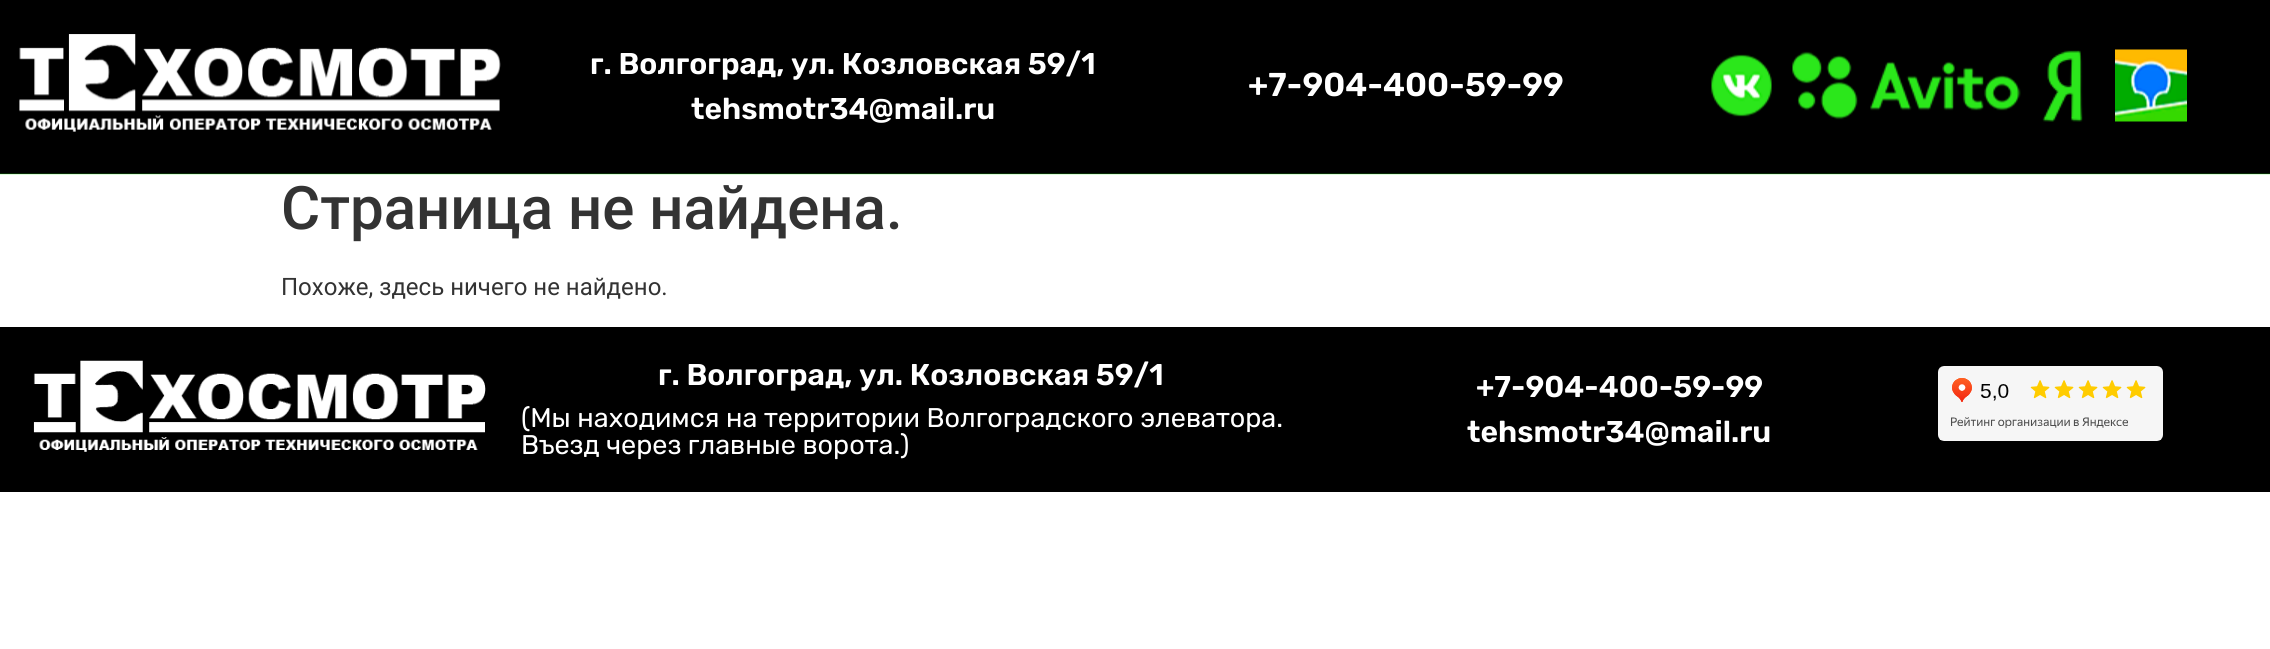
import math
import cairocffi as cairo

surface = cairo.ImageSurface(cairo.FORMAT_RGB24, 2270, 649)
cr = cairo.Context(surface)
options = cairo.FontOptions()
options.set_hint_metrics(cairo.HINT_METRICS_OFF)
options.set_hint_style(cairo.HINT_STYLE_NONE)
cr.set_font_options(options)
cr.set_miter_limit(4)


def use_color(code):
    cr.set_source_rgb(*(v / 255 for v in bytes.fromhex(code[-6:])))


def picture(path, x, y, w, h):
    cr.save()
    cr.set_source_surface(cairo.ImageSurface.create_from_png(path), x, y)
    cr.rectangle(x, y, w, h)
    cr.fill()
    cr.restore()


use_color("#ffffff")
cr.paint()
use_color("#d9fbd6")
cr.rectangle(0, 174, 2270, 1)
cr.fill()
use_color("#000000")
cr.rectangle(0, 0, 2270, 173)
cr.fill()
use_color("#082a05")
cr.rectangle(0, 173, 2270, 1)
cr.fill()
picture("img1.png", 19, 34, 482, 98)
cr.select_font_face("Rubik SemiBold")
cr.set_font_size(30)
use_color("#ffffff")
cr.move_to(590, 74)
cr.show_text("г. Волгоград, ул. Козловская 59/1")
cr.move_to(691, 119)
cr.show_text("tehsmotr34@mail.ru")
cr.set_font_size(33)
cr.move_to(1248, 96)
cr.show_text("+7-904-400-59-99")
picture("img2.png", 1711, 54, 61, 63)
picture("img3.png", 1792, 51, 229, 69)
picture("img4.png", 2042, 50, 41, 72)
picture("img5.png", 2115, 49, 72, 73)
cr.select_font_face("Roboto Medium")
cr.set_font_size(60)
use_color("#333333")
cr.move_to(281, 229)
cr.show_text("Страница не найдена.")
cr.select_font_face("Roboto")
cr.set_font_size(24)
cr.move_to(281, 295)
cr.show_text("Похоже, здесь ничего не найдено.")
use_color("#000000")
cr.rectangle(0, 327, 2270, 165)
cr.fill()
picture("img6.png", 33, 360, 453, 92)
cr.select_font_face("Rubik SemiBold")
cr.set_font_size(30)
use_color("#ffffff")
cr.move_to(658, 385)
cr.show_text("г. Волгоград, ул. Козловская 59/1")
cr.select_font_face("Rubik")
cr.set_font_size(27)
cr.move_to(521, 427)
cr.show_text("(Мы находимся на территории Волгоградского элеватора.")
cr.move_to(521, 454)
cr.show_text("Въезд через главные ворота.)")
cr.select_font_face("Rubik SemiBold")
cr.set_font_size(30)
cr.move_to(1476, 397)
cr.show_text("+7-904-400-59-99")
cr.move_to(1467, 442)
cr.show_text("tehsmotr34@mail.ru")
picture("img7.png", 1938, 366, 225, 75)
surface.write_to_png("result.png")
